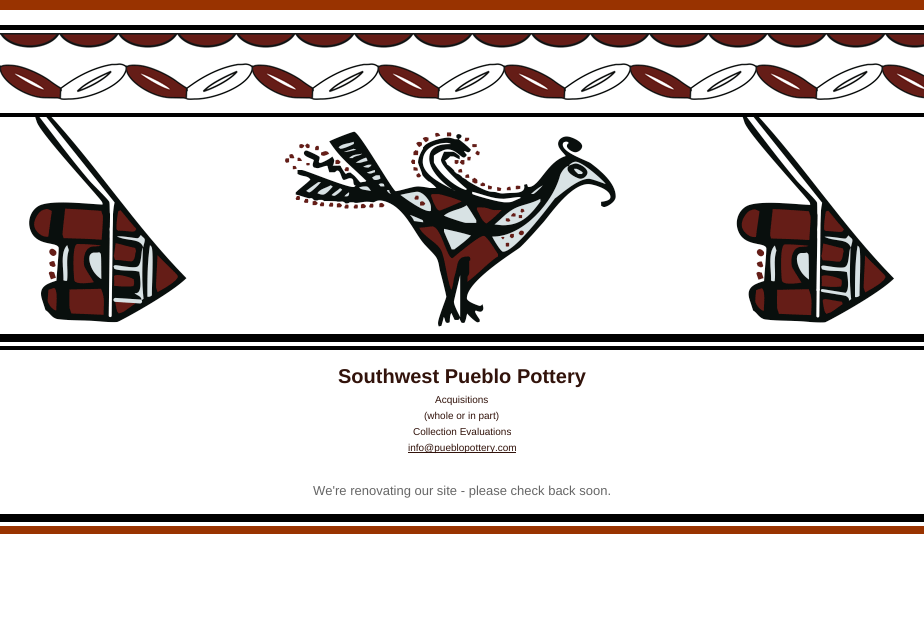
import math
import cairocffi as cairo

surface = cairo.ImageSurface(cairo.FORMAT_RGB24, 924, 619)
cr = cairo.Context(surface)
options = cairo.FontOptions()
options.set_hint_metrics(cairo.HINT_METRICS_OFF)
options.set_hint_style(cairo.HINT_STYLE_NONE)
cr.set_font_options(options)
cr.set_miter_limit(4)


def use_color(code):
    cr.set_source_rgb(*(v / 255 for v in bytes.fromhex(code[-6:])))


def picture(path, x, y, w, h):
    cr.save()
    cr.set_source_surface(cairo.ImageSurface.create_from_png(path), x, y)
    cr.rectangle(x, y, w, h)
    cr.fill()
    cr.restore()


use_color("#ffffff")
cr.paint()
use_color("#993300")
cr.rectangle(0, 0, 924, 10)
cr.fill()
use_color("#000000")
cr.rectangle(0, 25, 924, 5)
cr.fill()
picture("img1.png", 0, 33, 924, 15)
picture("img2.png", 0, 63, 924, 37)
cr.rectangle(0, 113, 924, 4)
cr.fill()
picture("img3.png", 29, 117, 865, 210)
cr.rectangle(0, 334, 924, 8)
cr.fill()
cr.rectangle(0, 346, 924, 4)
cr.fill()
cr.select_font_face("Liberation Sans", cairo.FONT_SLANT_NORMAL, cairo.FONT_WEIGHT_BOLD)
cr.set_font_size(20)
use_color("#32130b")
cr.move_to(338, 383)
cr.show_text("Southwest Pueblo Pottery")
cr.select_font_face("Liberation Sans")
cr.set_font_size(10)
cr.move_to(435, 403)
cr.show_text("Acquisitions")
cr.move_to(424, 419)
cr.show_text("(whole or in part)")
cr.move_to(413, 435)
cr.show_text("Collection Evaluations")
cr.rectangle(408, 452, 108, 1)
cr.fill()
cr.move_to(408, 451)
cr.show_text("info@pueblopottery.com")
cr.set_font_size(13)
use_color("#666666")
cr.move_to(313, 495)
cr.show_text("We're renovating our site - please check back soon.")
use_color("#000000")
cr.rectangle(0, 514, 924, 8)
cr.fill()
use_color("#993300")
cr.rectangle(0, 526, 924, 8)
cr.fill()
surface.write_to_png("result.png")
